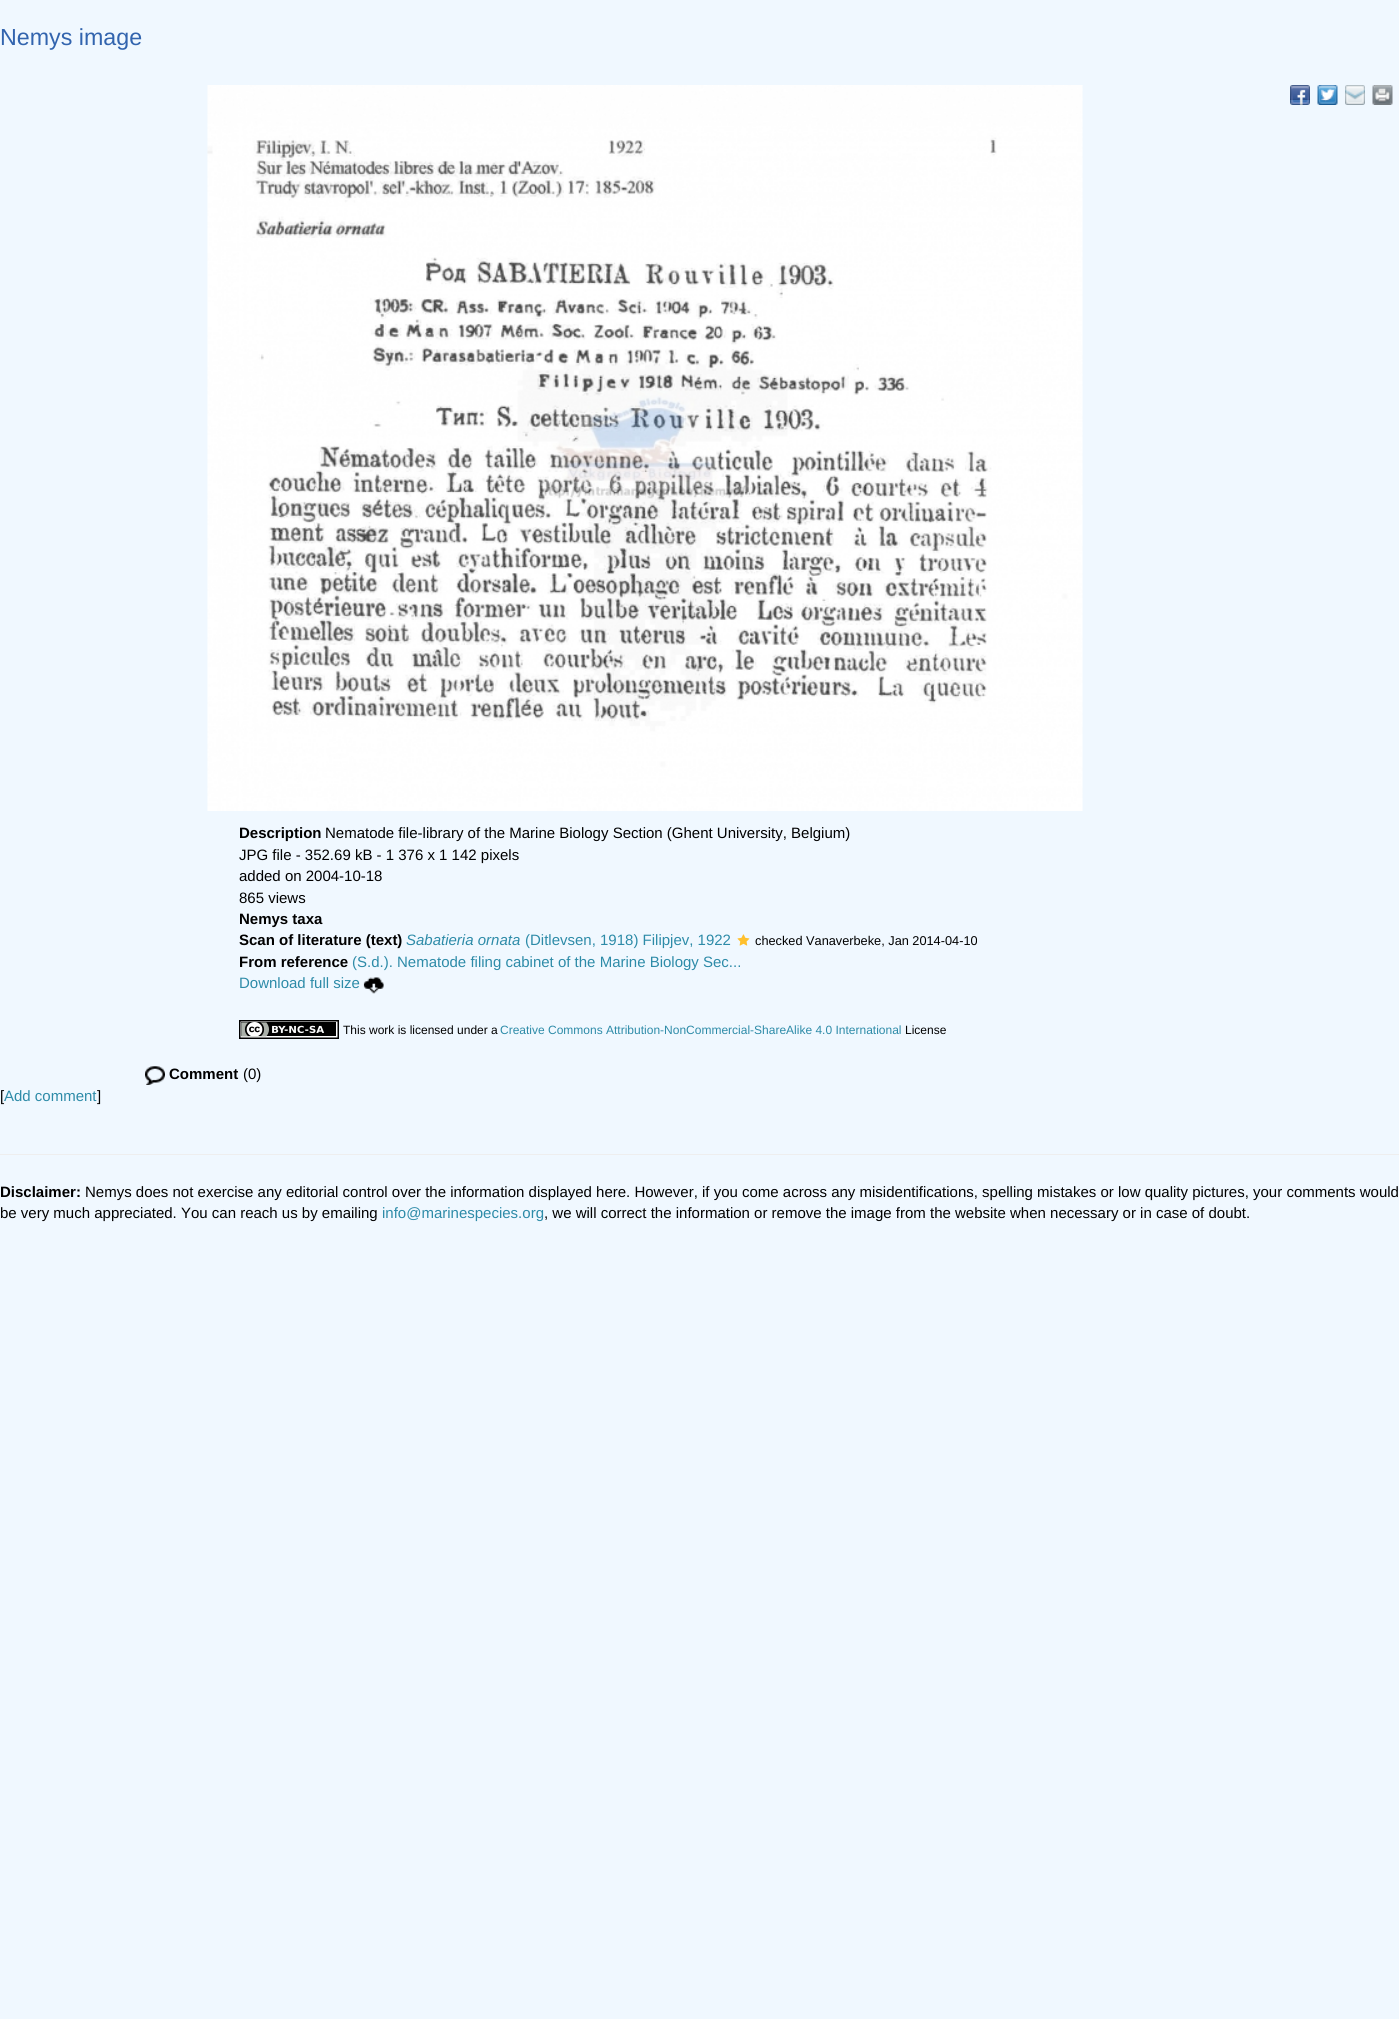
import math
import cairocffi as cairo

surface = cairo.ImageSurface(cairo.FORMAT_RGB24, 1399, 2019)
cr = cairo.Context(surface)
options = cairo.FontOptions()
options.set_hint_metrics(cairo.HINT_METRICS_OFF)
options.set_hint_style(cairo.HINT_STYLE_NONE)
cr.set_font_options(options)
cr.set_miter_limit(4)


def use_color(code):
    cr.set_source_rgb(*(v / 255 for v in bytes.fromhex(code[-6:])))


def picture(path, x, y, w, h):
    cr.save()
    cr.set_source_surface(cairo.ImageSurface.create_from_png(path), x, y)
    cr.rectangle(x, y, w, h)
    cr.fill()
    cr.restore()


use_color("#f0f8ff")
cr.paint()
cr.select_font_face("Liberation Sans")
cr.set_font_size(23.25)
use_color("#3264ae")
cr.move_to(0, 45)
cr.show_text("Nemys image")
picture("img1.png", 1290, 85, 20, 20)
picture("img2.png", 1317, 85, 21, 20)
picture("img3.png", 1345, 85, 20, 20)
picture("img4.png", 1372, 85, 21, 20)
picture("img5.png", 207, 85, 876, 726)
cr.select_font_face("Liberation Sans", cairo.FONT_SLANT_NORMAL, cairo.FONT_WEIGHT_BOLD)
cr.set_font_size(15)
use_color("#000000")
cr.move_to(239, 838)
cr.show_text("Description")
cr.select_font_face("Liberation Sans")
cr.move_to(325, 838)
cr.show_text("Nematode file-library of the Marine Biology Section (Ghent University, Belgium)")
cr.move_to(239, 860)
cr.show_text("JPG file - 352.69 kB - 1 376 x 1 142 pixels")
cr.move_to(239, 881)
cr.show_text("added on 2004-10-18")
cr.move_to(239, 903)
cr.show_text("865 views")
cr.select_font_face("Liberation Sans", cairo.FONT_SLANT_NORMAL, cairo.FONT_WEIGHT_BOLD)
cr.move_to(239, 924)
cr.show_text("Nemys taxa")
cr.move_to(239, 945)
cr.show_text("Scan of literature (text)")
cr.select_font_face("Liberation Sans", cairo.FONT_SLANT_ITALIC)
use_color("#2d8ba8")
cr.move_to(406, 945)
cr.show_text("Sabatieria ornata")
cr.select_font_face("Liberation Sans")
cr.move_to(525, 945)
cr.show_text("(Ditlevsen, 1918) Filipjev, 1922")
picture("img6.png", 737, 934, 13, 12)
cr.set_font_size(12.75)
use_color("#000000")
cr.move_to(755, 945)
cr.show_text("checked Vanaverbeke, Jan 2014-04-10")
cr.select_font_face("Liberation Sans", cairo.FONT_SLANT_NORMAL, cairo.FONT_WEIGHT_BOLD)
cr.set_font_size(15)
cr.move_to(239, 967)
cr.show_text("From reference")
cr.select_font_face("Liberation Sans")
use_color("#2d8ba8")
cr.move_to(352, 967)
cr.show_text("(S.d.). Nematode filing cabinet of the Marine Biology Sec...")
cr.move_to(239, 988)
cr.show_text("Download full size")
picture("img7.png", 363, 977, 21, 17)
picture("img8.png", 239, 1020, 100, 19)
cr.set_font_size(12)
use_color("#000000")
cr.move_to(343, 1034)
cr.show_text("This work is licensed under a")
use_color("#2d8ba8")
cr.move_to(500, 1034)
cr.show_text("Creative Commons Attribution-NonCommercial-ShareAlike 4.0 International")
use_color("#000000")
cr.move_to(905, 1034)
cr.show_text("License")
picture("img9.png", 145, 1066, 20, 19)
cr.select_font_face("Liberation Sans", cairo.FONT_SLANT_NORMAL, cairo.FONT_WEIGHT_BOLD)
cr.set_font_size(15)
cr.move_to(169, 1079)
cr.show_text("Comment")
cr.select_font_face("Liberation Sans")
cr.move_to(243, 1079)
cr.show_text("(0)")
cr.move_to(0, 1101)
cr.show_text("[")
use_color("#2d8ba8")
cr.move_to(4, 1101)
cr.show_text("Add comment")
use_color("#000000")
cr.move_to(97, 1101)
cr.show_text("]")
use_color("#eeeeee")
cr.rectangle(0, 1154, 1399, 1)
cr.fill()
cr.select_font_face("Liberation Sans", cairo.FONT_SLANT_NORMAL, cairo.FONT_WEIGHT_BOLD)
use_color("#000000")
cr.move_to(0, 1197)
cr.show_text("Disclaimer:")
cr.select_font_face("Liberation Sans")
cr.move_to(85, 1197)
cr.show_text("Nemys does not exercise any editorial control over the information displayed here. However, if you come across any misidentifications, spelling mistakes or low quality pictures, your comments would")
cr.move_to(0, 1218)
cr.show_text("be very much appreciated. You can reach us by emailing")
use_color("#2d8ba8")
cr.move_to(382, 1218)
cr.show_text("info@marinespecies.org")
use_color("#000000")
cr.move_to(544, 1218)
cr.show_text(", we will correct the information or remove the image from the website when necessary or in case of doubt.")
surface.write_to_png("result.png")
